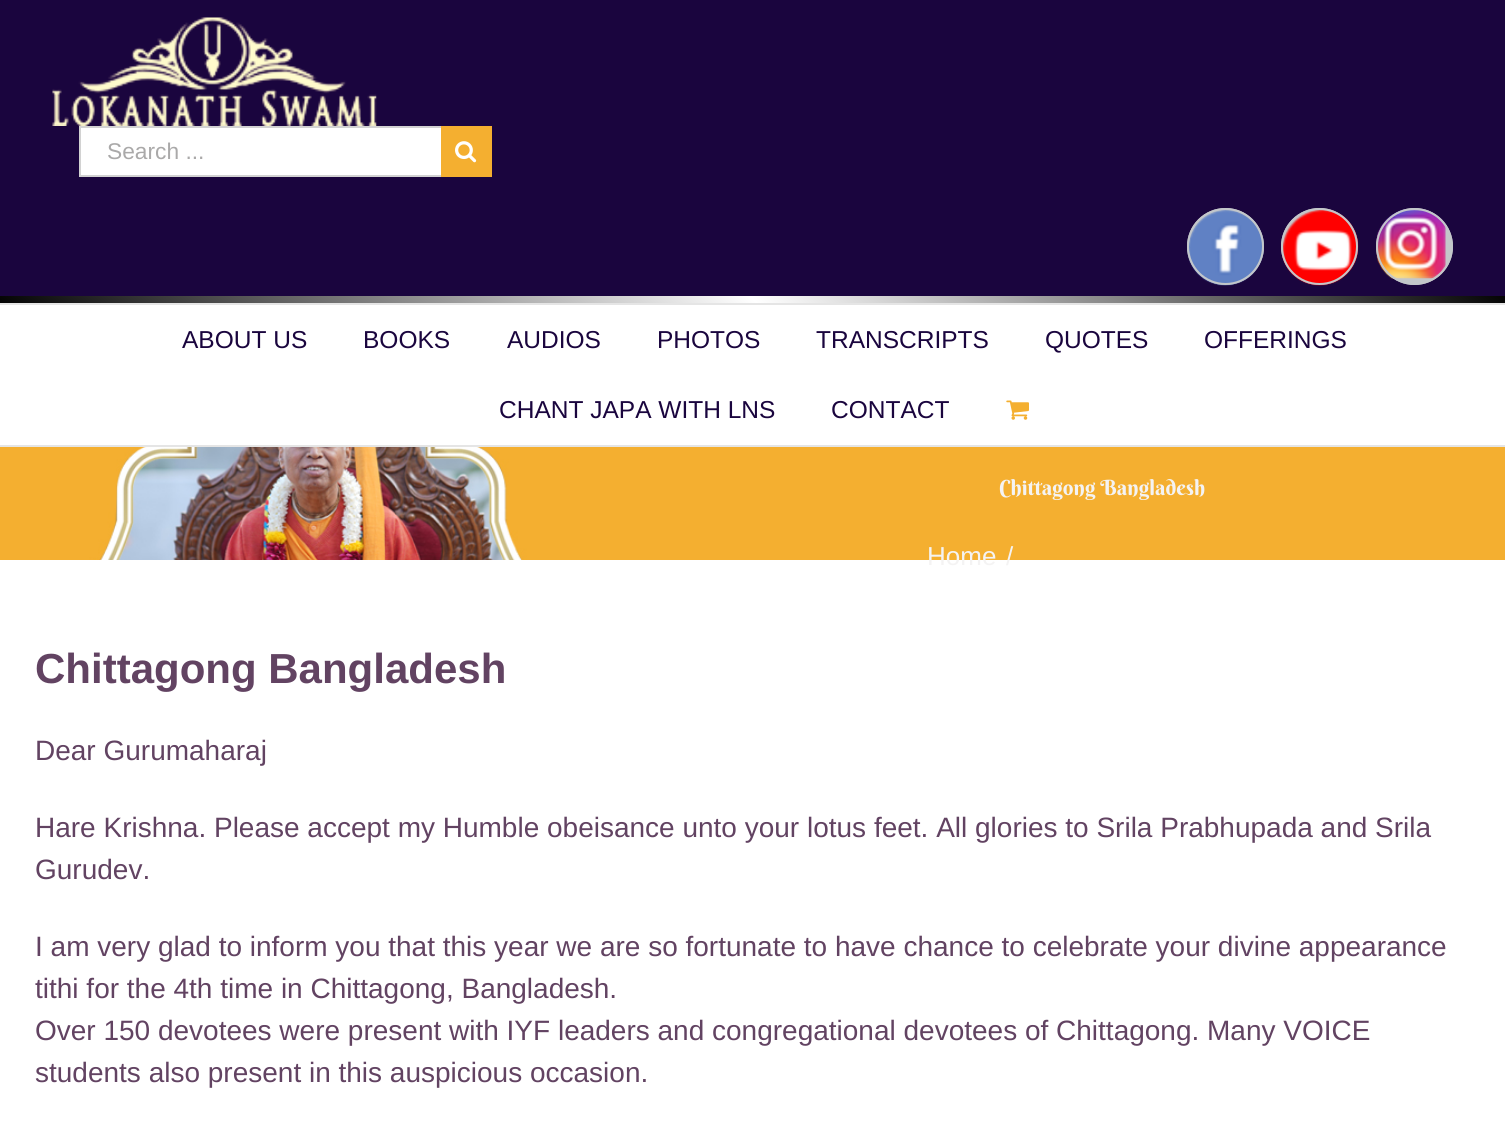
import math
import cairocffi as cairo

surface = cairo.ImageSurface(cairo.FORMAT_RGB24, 1505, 1121)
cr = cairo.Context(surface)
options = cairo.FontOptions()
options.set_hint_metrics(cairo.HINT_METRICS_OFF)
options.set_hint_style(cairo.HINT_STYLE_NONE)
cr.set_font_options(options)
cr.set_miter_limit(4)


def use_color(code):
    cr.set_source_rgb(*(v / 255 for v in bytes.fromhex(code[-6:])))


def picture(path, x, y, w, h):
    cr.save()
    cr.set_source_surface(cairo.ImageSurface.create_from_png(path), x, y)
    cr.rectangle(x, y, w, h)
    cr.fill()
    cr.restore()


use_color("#ffffff")
cr.paint()
use_color("#1a053e")
cr.rectangle(0, 0, 1505, 296)
cr.fill()
use_color("#e5e5e5")
cr.rectangle(0, 303, 1505, 2)
cr.fill()
picture("img1.png", 52, 17, 325, 109)
use_color("#ffffff")
cr.rectangle(81, 128, 360, 47)
cr.fill()
use_color("#d2d2d2")
cr.rectangle(79, 126, 362, 2)
cr.fill()
cr.rectangle(79, 175, 362, 2)
cr.fill()
cr.rectangle(79, 126, 2, 51)
cr.fill()
cr.select_font_face("Liberation Sans")
cr.set_font_size(22.75)
use_color("#aaa9a9")
cr.move_to(107, 159)
cr.show_text("Search ...")
use_color("#f4af30")
cr.rectangle(441, 126, 51, 51)
cr.fill()
picture("img2.png", 455, 141, 22, 22)
use_color("#c3c7ca")
cr.arc(1225.5, 246.5, 38.5, 0, 2 * math.pi)
cr.fill()
picture("img3.png", 1187, 209, 77, 77)
cr.arc(1225.5, 246.5, 37.5, 0, 2 * math.pi)
cr.stroke()
cr.arc(1319.5, 246.5, 38.5, 0, 2 * math.pi)
cr.fill()
picture("img4.png", 1282, 209, 77, 77)
cr.arc(1319.5, 246.5, 37.5, 0, 2 * math.pi)
cr.stroke()
cr.arc(1414.5, 246.5, 38.5, 0, 2 * math.pi)
cr.fill()
picture("img5.png", 1376, 209, 70, 70)
cr.arc(1414.5, 246.5, 37.5, 0, 2 * math.pi)
cr.stroke()
gradient = cairo.LinearGradient(375, 677, 1131, -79)
gradient.add_color_stop_rgba(0, 0.016, 0.016, 0.016, 1)
gradient.add_color_stop_rgba(0.5, 1, 1, 1, 1)
gradient.add_color_stop_rgba(1, 0.016, 0.016, 0.016, 1)
cr.set_source(gradient)
cr.rectangle(0, 296, 1505, 7)
cr.fill()
use_color("#e5e5e5")
cr.rectangle(0, 445, 1505, 2)
cr.fill()
cr.set_font_size(24.5)
use_color("#1a053e")
cr.move_to(182, 348)
cr.show_text("ABOUT US")
cr.move_to(363, 348)
cr.show_text("BOOKS")
cr.move_to(507, 348)
cr.show_text("AUDIOS")
cr.move_to(657, 348)
cr.show_text("PHOTOS")
cr.move_to(816, 348)
cr.show_text("TRANSCRIPTS")
cr.move_to(1045, 348)
cr.show_text("QUOTES")
cr.move_to(1204, 348)
cr.show_text("OFFERINGS")
cr.move_to(499, 418)
cr.show_text("CHANT JAPA WITH LNS")
cr.move_to(831, 418)
cr.show_text("CONTACT")
picture("img6.png", 1006, 400, 23, 20)
picture("img7.png", 0, 447, 1505, 113)
cr.select_font_face("Berkshire Swash")
cr.set_font_size(21)
use_color("#f4f3f3")
cr.move_to(999, 495)
cr.show_text("Chittagong Bangladesh")
cr.select_font_face("Liberation Sans")
cr.set_font_size(26)
cr.move_to(927, 565)
cr.show_text("Home")
cr.move_to(1006, 565)
cr.show_text("/")
cr.select_font_face("Liberation Sans", cairo.FONT_SLANT_NORMAL, cairo.FONT_WEIGHT_BOLD)
cr.set_font_size(42)
use_color("#624362")
cr.move_to(35, 683)
cr.show_text("Chittagong Bangladesh")
cr.select_font_face("Liberation Sans")
cr.set_font_size(28)
cr.move_to(35, 760)
cr.show_text("Dear Gurumaharaj")
cr.move_to(35, 837)
cr.show_text("Hare Krishna. Please accept my Humble obeisance unto your lotus feet. All glories to Srila Prabhupada and Srila")
cr.move_to(35, 879)
cr.show_text("Gurudev.")
cr.move_to(35, 956)
cr.show_text("I am very glad to inform you that this year we are so fortunate to have chance to celebrate your divine appearance")
cr.move_to(35, 998)
cr.show_text("tithi for the 4th time in Chittagong, Bangladesh.")
cr.move_to(35, 1040)
cr.show_text("Over 150 devotees were present with IYF leaders and congregational devotees of Chittagong. Many VOICE")
cr.move_to(35, 1082)
cr.show_text("students also present in this auspicious occasion.")
surface.write_to_png("result.png")
